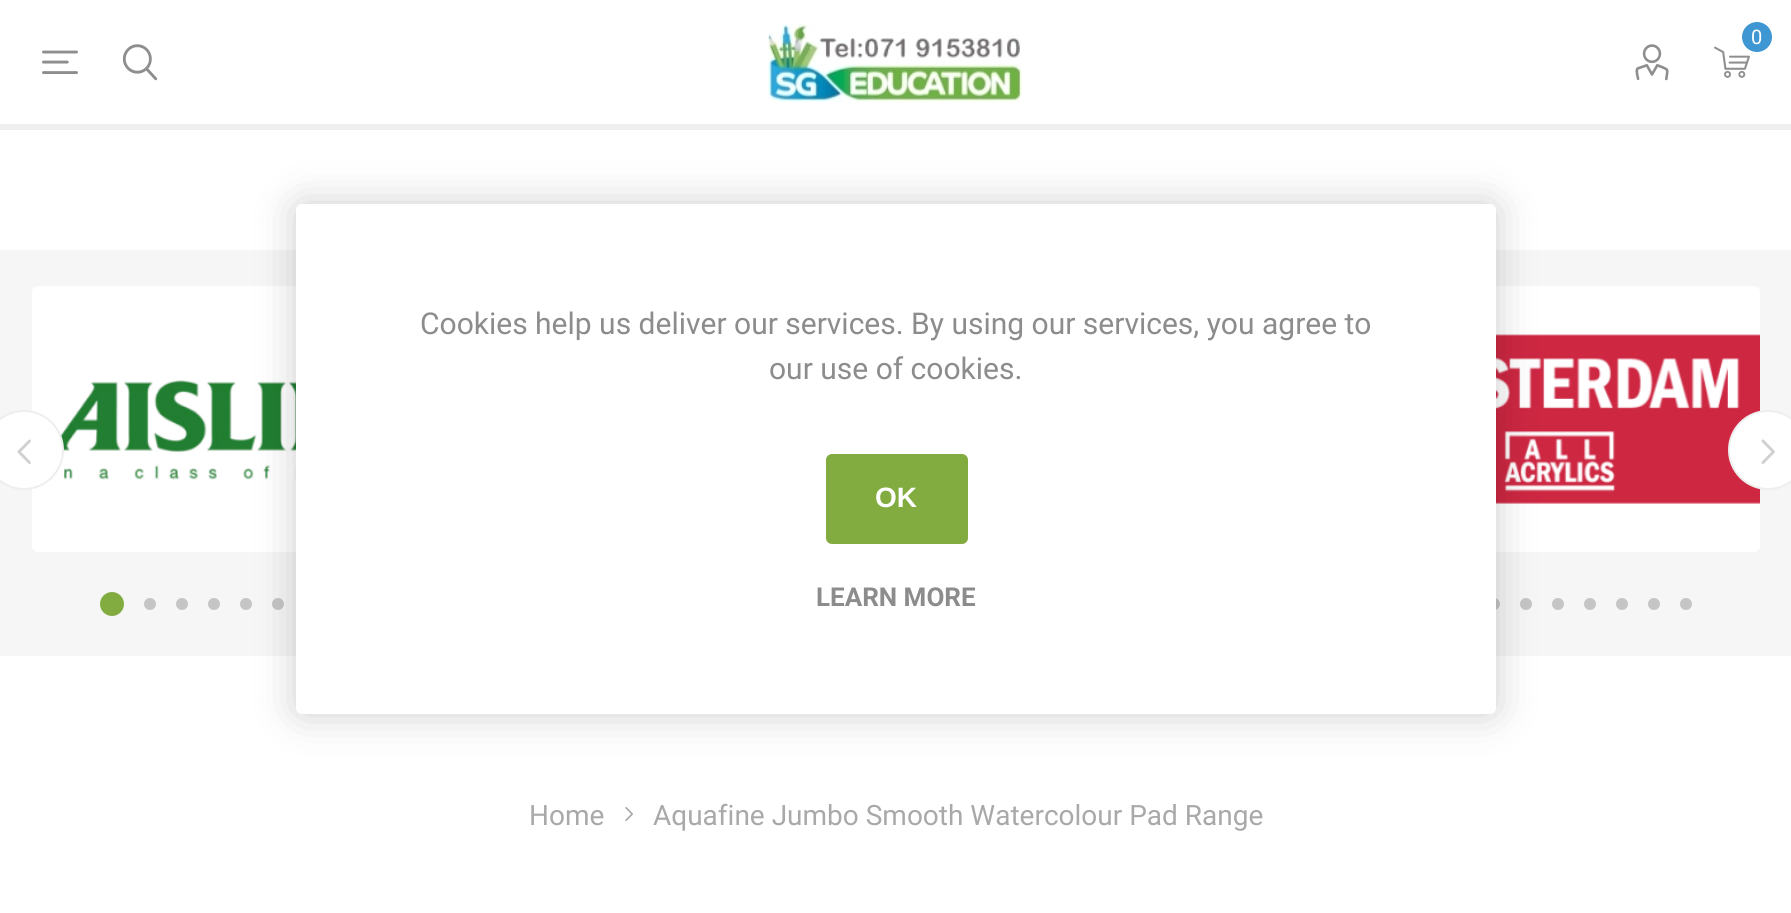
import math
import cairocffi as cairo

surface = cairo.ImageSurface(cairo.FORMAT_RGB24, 1791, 913)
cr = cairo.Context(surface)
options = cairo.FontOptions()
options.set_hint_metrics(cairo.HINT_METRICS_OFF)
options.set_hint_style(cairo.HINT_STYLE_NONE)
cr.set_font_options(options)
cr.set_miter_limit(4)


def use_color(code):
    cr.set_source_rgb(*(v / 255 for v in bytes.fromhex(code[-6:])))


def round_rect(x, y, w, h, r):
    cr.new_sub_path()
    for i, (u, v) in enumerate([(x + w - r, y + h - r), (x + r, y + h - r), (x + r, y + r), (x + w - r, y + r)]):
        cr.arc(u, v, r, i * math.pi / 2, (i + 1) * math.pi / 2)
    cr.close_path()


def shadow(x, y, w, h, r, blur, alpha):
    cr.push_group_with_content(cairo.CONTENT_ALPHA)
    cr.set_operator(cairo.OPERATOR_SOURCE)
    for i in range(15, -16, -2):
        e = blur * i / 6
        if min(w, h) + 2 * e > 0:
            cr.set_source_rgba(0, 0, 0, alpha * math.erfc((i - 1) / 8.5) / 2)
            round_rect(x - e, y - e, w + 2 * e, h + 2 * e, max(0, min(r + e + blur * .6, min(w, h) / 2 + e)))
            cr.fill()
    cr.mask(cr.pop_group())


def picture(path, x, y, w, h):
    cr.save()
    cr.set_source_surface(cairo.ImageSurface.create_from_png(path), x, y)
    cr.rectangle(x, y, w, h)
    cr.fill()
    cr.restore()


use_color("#ffffff")
cr.paint()
use_color("#eeeeee")
cr.rectangle(0, 124, 1791, 6)
cr.fill()
picture("img1.png", 767, 24, 255, 78)
picture("img2.png", 1714, 46, 36, 32)
use_color("#3e97d2")
cr.arc(1757, 37, 15, 0, 2 * math.pi)
cr.fill()
cr.select_font_face("Roboto")
cr.set_font_size(20)
use_color("#ffffff")
cr.move_to(1751, 44)
cr.show_text("0")
picture("img3.png", 42, 50, 36, 24)
picture("img4.png", 122, 44, 36, 37)
picture("img5.png", 1635, 44, 34, 37)
use_color("#f6f6f6")
cr.rectangle(0, 250, 1791, 406)
cr.fill()
use_color("#ffffff")
round_rect(32, 286, 402, 266, 6)
cr.fill()
picture("img7.png", 47, 380, 249, 100)
cr.arc(24, 450, 39, 0, 2 * math.pi)
cr.fill_preserve()
use_color("#eeeeee")
cr.stroke()
picture("img6.png", 17, 439, 14, 25)
use_color("#ffffff")
round_rect(1358, 286, 402, 266, 6)
cr.fill()
picture("img8.png", 1496, 334, 264, 170)
cr.arc(1768, 450, 39, 0, 2 * math.pi)
cr.fill_preserve()
use_color("#eeeeee")
cr.stroke()
picture("img9.png", 1761, 439, 14, 25)
use_color("#82ab40")
cr.arc(112, 604, 12, 0, 2 * math.pi)
cr.fill()
use_color("#c5c5c5")
cr.arc(150, 604, 6, 0, 2 * math.pi)
cr.fill()
cr.arc(182, 604, 6, 0, 2 * math.pi)
cr.fill()
cr.arc(214, 604, 6, 0, 2 * math.pi)
cr.fill()
cr.arc(246, 604, 6, 0, 2 * math.pi)
cr.fill()
cr.arc(278, 604, 6, 0, 2 * math.pi)
cr.fill()
cr.arc(1494, 604, 6, 0, 2 * math.pi)
cr.fill()
cr.arc(1526, 604, 6, 0, 2 * math.pi)
cr.fill()
cr.arc(1558, 604, 6, 0, 2 * math.pi)
cr.fill()
cr.arc(1590, 604, 6, 0, 2 * math.pi)
cr.fill()
cr.arc(1622, 604, 6, 0, 2 * math.pi)
cr.fill()
cr.arc(1654, 604, 6, 0, 2 * math.pi)
cr.fill()
cr.arc(1686, 604, 6, 0, 2 * math.pi)
cr.fill()
cr.set_font_size(28)
use_color("#a9a9a9")
cr.move_to(529, 825)
cr.show_text("Home")
picture("img10.png", 625, 807, 8, 15)
cr.move_to(653, 825)
cr.show_text("Aquafine Jumbo Smooth Watercolour Pad Range")
use_color("#000000")
shadow(296, 204, 1200, 510, 6, 20, 0.2)
use_color("#ffffff")
round_rect(296, 204, 1200, 510, 6)
cr.fill()
cr.set_font_size(30)
use_color("#8c8c8c")
cr.move_to(420, 334)
cr.show_text("Cookies help us deliver our services. By using our services, you agree to")
cr.move_to(769, 379)
cr.show_text("our use of cookies.")
use_color("#82ab40")
round_rect(826, 454, 142, 90, 6)
cr.fill()
cr.select_font_face("Liberation Sans", cairo.FONT_SLANT_NORMAL, cairo.FONT_WEIGHT_BOLD)
cr.set_font_size(28)
use_color("#ffffff")
cr.move_to(875, 507)
cr.show_text("OK")
cr.select_font_face("Roboto", cairo.FONT_SLANT_NORMAL, cairo.FONT_WEIGHT_BOLD)
cr.set_font_size(26)
use_color("#8c8c8c")
cr.move_to(816, 606)
cr.show_text("LEARN MORE")
surface.write_to_png("result.png")
